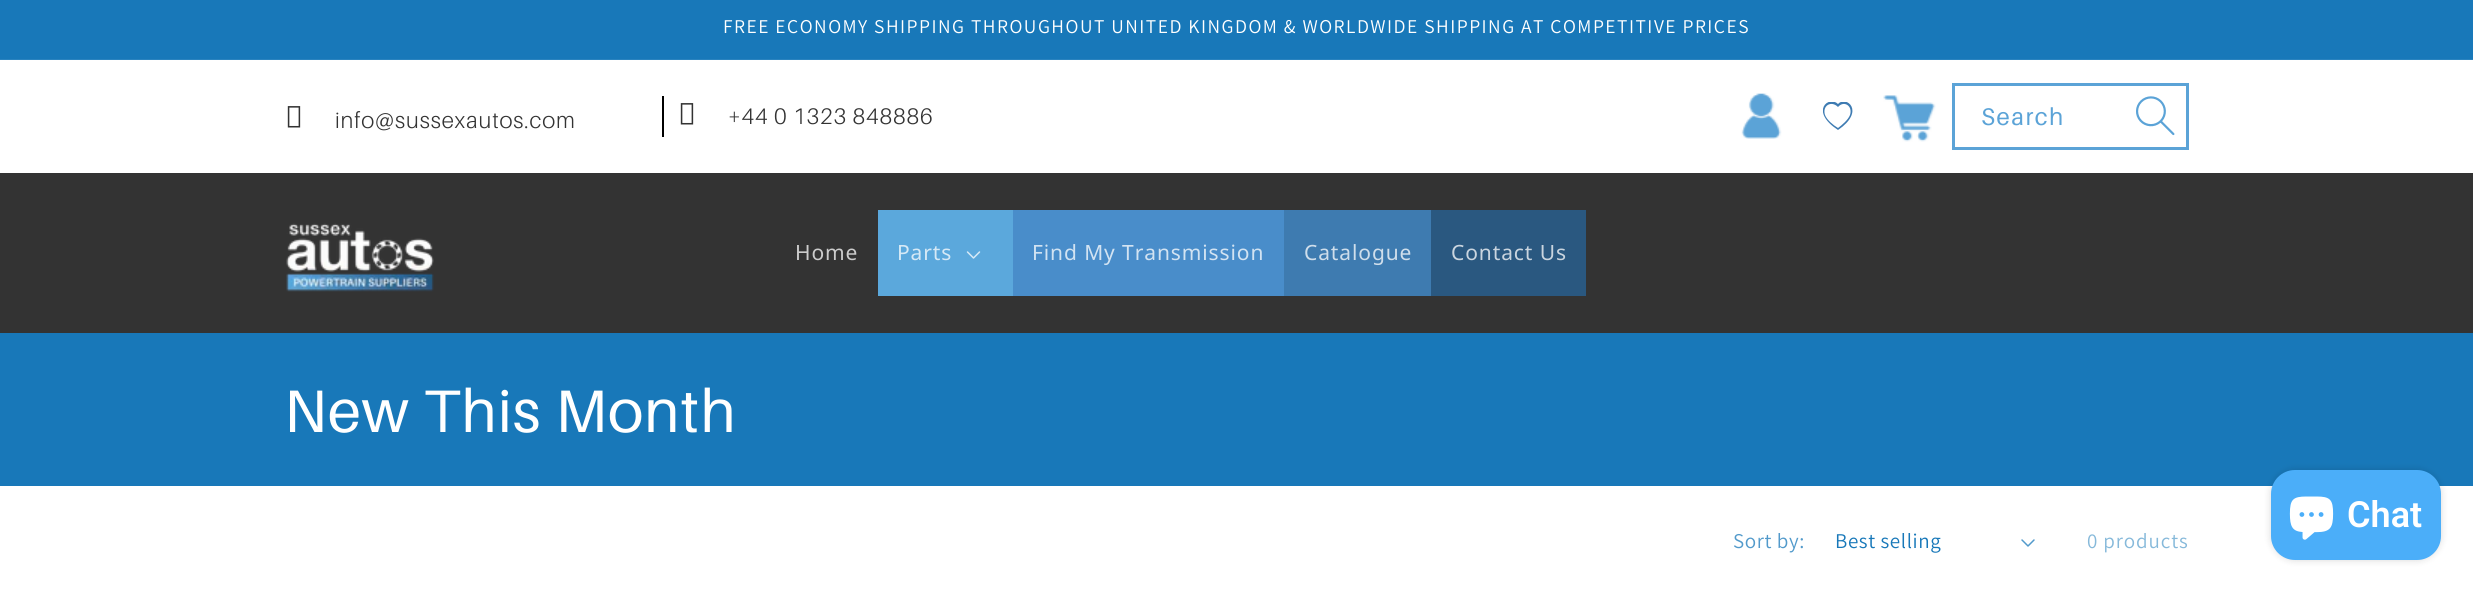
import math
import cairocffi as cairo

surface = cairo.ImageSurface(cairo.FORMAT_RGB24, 2473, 591)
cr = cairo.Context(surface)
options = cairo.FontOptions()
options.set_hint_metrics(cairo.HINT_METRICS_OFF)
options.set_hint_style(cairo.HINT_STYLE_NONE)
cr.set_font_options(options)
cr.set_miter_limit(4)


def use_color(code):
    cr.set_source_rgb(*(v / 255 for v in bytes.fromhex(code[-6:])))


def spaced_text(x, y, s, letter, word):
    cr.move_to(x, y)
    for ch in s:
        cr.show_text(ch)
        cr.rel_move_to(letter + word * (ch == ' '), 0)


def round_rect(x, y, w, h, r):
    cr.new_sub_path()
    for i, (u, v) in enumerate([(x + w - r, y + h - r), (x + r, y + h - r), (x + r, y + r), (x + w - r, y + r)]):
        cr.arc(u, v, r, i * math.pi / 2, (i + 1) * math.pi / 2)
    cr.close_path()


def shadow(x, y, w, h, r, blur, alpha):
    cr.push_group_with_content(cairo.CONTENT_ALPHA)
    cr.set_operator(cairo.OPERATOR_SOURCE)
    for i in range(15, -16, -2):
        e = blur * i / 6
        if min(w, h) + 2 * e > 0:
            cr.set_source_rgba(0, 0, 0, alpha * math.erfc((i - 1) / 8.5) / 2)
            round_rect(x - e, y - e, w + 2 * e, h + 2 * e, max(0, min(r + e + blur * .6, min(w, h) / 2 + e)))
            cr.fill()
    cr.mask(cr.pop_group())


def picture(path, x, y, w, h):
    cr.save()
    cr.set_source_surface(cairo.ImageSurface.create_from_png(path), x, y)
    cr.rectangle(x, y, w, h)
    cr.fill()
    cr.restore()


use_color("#ffffff")
cr.paint()
use_color("#1878b9")
cr.rectangle(0, 0, 2473, 59)
cr.fill()
use_color("#2a83bf")
cr.rectangle(0, 59, 2473, 1)
cr.fill()
cr.select_font_face("Assistant")
cr.set_font_size(19.5)
use_color("#ffffff")
spaced_text(723, 33, "FREE ECONOMY SHIPPING THROUGHOUT UNITED KINGDOM & WORLDWIDE SHIPPING AT COMPETITIVE PRICES", 1.5, 0)
use_color("#333333")
cr.rectangle(0, 173, 2473, 160)
cr.fill()
use_color("#000000")
cr.rectangle(662, 96, 2, 41)
cr.fill()
picture("img1.png", 287, 106, 14, 22)
cr.select_font_face("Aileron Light")
cr.set_font_size(22.5)
use_color("#333333")
spaced_text(335, 128, "info@sussexautos.com", 0.9, 0)
picture("img1.png", 680, 103, 14, 22)
spaced_text(728, 124, "+44 0 1323 848886", 0.9, 0)
picture("img2.png", 1741, 93, 41, 46)
cr.save()
cr.rectangle(1823, 102, 30, 30)
cr.clip()
use_color("#3e7bb2")
cr.new_path()
cr.move_to(1838, 107)
cr.curve_to(1831, 100, 1822, 106, 1825, 115)
cr.curve_to(1827, 120, 1833, 125, 1838, 128)
cr.curve_to(1842, 125, 1848, 120, 1850, 115)
cr.curve_to(1853, 106, 1844, 100, 1838, 107)
cr.close_path()
cr.move_to(1838, 130)
cr.curve_to(1809, 111, 1829, 95, 1838, 104)
cr.curve_to(1846, 95, 1866, 111, 1838, 130)
cr.close_path()
cr.fill()
cr.restore()
picture("img3.png", 1883, 95, 53, 47)
cr.rectangle(1953.5, 84.5, 234, 64)
use_color("#5ba3d7")
cr.set_line_width(3)
cr.stroke()
cr.select_font_face("Aileron")
cr.set_font_size(24)
spaced_text(1981, 125, "Search", 1.5, 0)
picture("img4.png", 2136, 96, 39, 40)
picture("img5.png", 286, 223, 148, 69)
cr.select_font_face("Noto Sans")
cr.set_font_size(21)
use_color("#cccccc")
spaced_text(795, 260, "Home", 0.9, 0)
use_color("#5ba8dc")
cr.rectangle(878, 210, 135, 86)
cr.fill()
use_color("#d6e9f6")
spaced_text(897, 260, "Parts", 0.9, 0)
picture("img6.png", 966, 251, 15, 8)
use_color("#498dca")
cr.rectangle(1013, 210, 271, 86)
cr.fill()
use_color("#d2e3f2")
spaced_text(1032, 260, "Find My Transmission", 0.9, 0)
use_color("#3e7bb0")
cr.rectangle(1284, 210, 147, 86)
cr.fill()
use_color("#cfdeeb")
spaced_text(1304, 260, "Catalogue", 0.9, 0)
use_color("#2a5880")
cr.rectangle(1431, 210, 155, 86)
cr.fill()
use_color("#cad5df")
spaced_text(1451, 260, "Contact Us", 0.9, 0)
use_color("#1878b9")
cr.rectangle(0, 333, 2473, 153)
cr.fill()
cr.select_font_face("Aileron")
cr.set_font_size(60)
use_color("#ffffff")
spaced_text(284, 432, "New This Month", 0.9, 0)
cr.select_font_face("Assistant")
cr.set_font_size(21)
use_color("#529acb")
spaced_text(1733, 548, "Sort by:", 0.6, 0)
use_color("#1878b9")
spaced_text(1835, 548, "Best selling", 0.6, 0)
picture("img7.png", 2021, 539, 14, 8)
use_color("#86b9da")
spaced_text(2087, 548, "0 products", 0.9, 0)
use_color("#000000")
shadow(2271, 470, 170, 90, 24, 4, 0.15)
use_color("#4baef9")
round_rect(2271, 470, 170, 90, 24)
cr.fill()
picture("img8.png", 2289, 496, 45, 44)
cr.select_font_face("Roboto SemiBold")
cr.set_font_size(36)
use_color("#ffffff")
cr.move_to(2347, 527)
cr.show_text("Chat")
surface.write_to_png("result.png")
